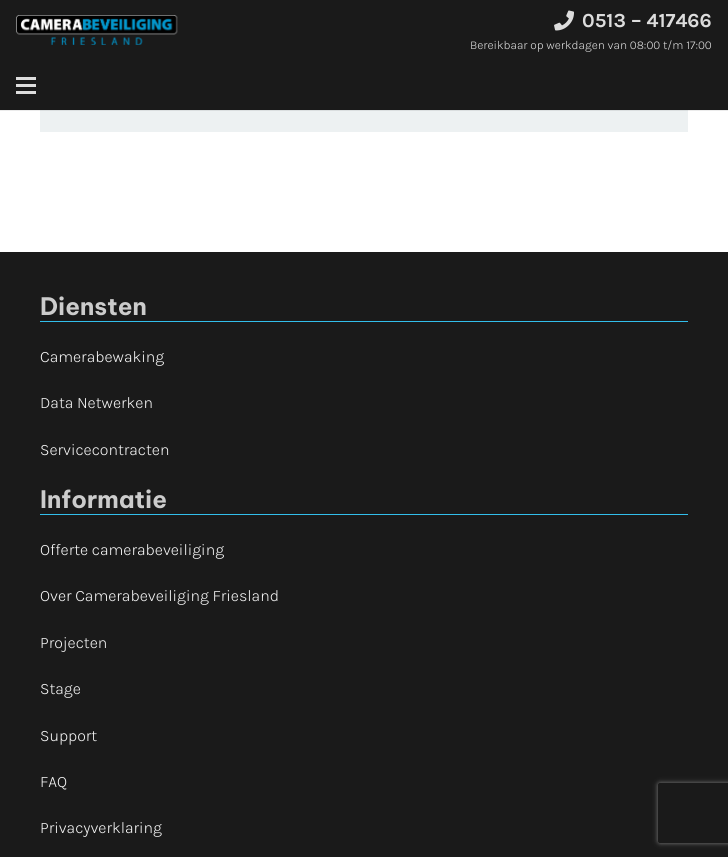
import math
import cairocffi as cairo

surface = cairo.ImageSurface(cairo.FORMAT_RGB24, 728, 857)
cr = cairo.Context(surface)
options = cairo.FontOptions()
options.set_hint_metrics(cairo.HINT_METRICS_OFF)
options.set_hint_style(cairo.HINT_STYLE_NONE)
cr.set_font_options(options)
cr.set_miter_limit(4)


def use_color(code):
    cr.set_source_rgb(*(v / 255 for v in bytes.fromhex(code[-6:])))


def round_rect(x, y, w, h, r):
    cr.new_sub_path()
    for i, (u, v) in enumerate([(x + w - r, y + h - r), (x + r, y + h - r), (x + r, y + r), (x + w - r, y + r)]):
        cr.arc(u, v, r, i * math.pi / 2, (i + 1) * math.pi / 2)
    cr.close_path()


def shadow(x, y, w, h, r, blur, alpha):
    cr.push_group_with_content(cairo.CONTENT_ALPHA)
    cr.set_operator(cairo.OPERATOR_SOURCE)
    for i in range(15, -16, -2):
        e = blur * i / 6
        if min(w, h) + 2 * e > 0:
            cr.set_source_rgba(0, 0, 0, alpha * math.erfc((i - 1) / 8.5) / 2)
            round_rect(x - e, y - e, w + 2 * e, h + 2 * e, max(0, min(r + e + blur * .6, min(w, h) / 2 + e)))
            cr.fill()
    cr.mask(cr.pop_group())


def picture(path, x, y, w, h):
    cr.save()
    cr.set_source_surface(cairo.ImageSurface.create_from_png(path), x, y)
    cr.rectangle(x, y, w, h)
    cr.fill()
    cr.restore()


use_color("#ffffff")
cr.paint()
use_color("#ebebeb")
cr.rectangle(0, 110, 728, 1)
cr.fill()
use_color("#1a1a1a")
cr.rectangle(0, 0, 728, 110)
cr.fill()
picture("img1.png", 16, 15, 162, 30)
picture("img2.png", 554, 10, 20, 21)
cr.select_font_face("Karla", cairo.FONT_SLANT_NORMAL, cairo.FONT_WEIGHT_BOLD)
cr.set_font_size(20)
use_color("#dddddd")
cr.move_to(582, 27)
cr.show_text("0513 – 417466")
cr.select_font_face("Karla Light")
cr.set_font_size(12)
cr.move_to(470, 49)
cr.show_text("Bereikbaar op werkdagen van 08:00 t/m 17:00")
cr.rectangle(16, 84, 20, 3)
cr.fill()
cr.rectangle(16, 77, 20, 3)
cr.fill()
cr.rectangle(16, 91, 20, 3)
cr.fill()
use_color("#edf1f2")
cr.rectangle(40, 111, 648, 21)
cr.fill()
use_color("#dadedf")
cr.rectangle(40, 110, 648, 1)
cr.fill()
use_color("#1a1a1a")
cr.rectangle(0, 252, 728, 605)
cr.fill()
use_color("#32beeb")
cr.rectangle(40, 321, 648, 1)
cr.fill()
cr.select_font_face("Be Vietnam Pro", cairo.FONT_SLANT_NORMAL, cairo.FONT_WEIGHT_BOLD)
cr.set_font_size(24)
use_color("#cccccc")
cr.move_to(40, 315)
cr.show_text("Diensten")
cr.select_font_face("Karla Light")
cr.set_font_size(16)
use_color("#f5f5f5")
cr.move_to(40, 362)
cr.show_text("Camerabewaking")
cr.move_to(40, 408)
cr.show_text("Data Netwerken")
cr.move_to(40, 455)
cr.show_text("Servicecontracten")
use_color("#32beeb")
cr.rectangle(40, 514, 648, 1)
cr.fill()
cr.select_font_face("Be Vietnam Pro", cairo.FONT_SLANT_NORMAL, cairo.FONT_WEIGHT_BOLD)
cr.set_font_size(24)
use_color("#cccccc")
cr.move_to(40, 508)
cr.show_text("Informatie")
cr.select_font_face("Karla Light")
cr.set_font_size(16)
use_color("#f5f5f5")
cr.move_to(40, 555)
cr.show_text("Offerte camerabeveiliging")
cr.move_to(40, 601)
cr.show_text("Over Camerabeveiliging Friesland")
cr.move_to(40, 648)
cr.show_text("Projecten")
cr.move_to(40, 694)
cr.show_text("Stage")
cr.move_to(40, 741)
cr.show_text("Support")
cr.move_to(40, 787)
cr.show_text("FAQ")
cr.move_to(40, 833)
cr.show_text("Privacyverklaring")
cr.save()
cr.set_fill_rule(cairo.FILL_RULE_EVEN_ODD)
cr.new_path()
cr.move_to(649, 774)
cr.line_to(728, 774)
cr.line_to(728, 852)
cr.line_to(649, 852)
cr.close_path()
cr.move_to(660, 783)
cr.line_to(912, 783)
cr.curve_to(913, 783, 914, 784, 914, 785)
cr.line_to(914, 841)
cr.curve_to(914, 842, 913, 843, 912, 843)
cr.line_to(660, 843)
cr.curve_to(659, 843, 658, 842, 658, 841)
cr.line_to(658, 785)
cr.curve_to(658, 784, 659, 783, 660, 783)
cr.close_path()
cr.clip()
use_color("#808080")
shadow(658, 783, 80, 60, 2, 2.5, 1)
cr.restore()
surface.write_to_png("result.png")
